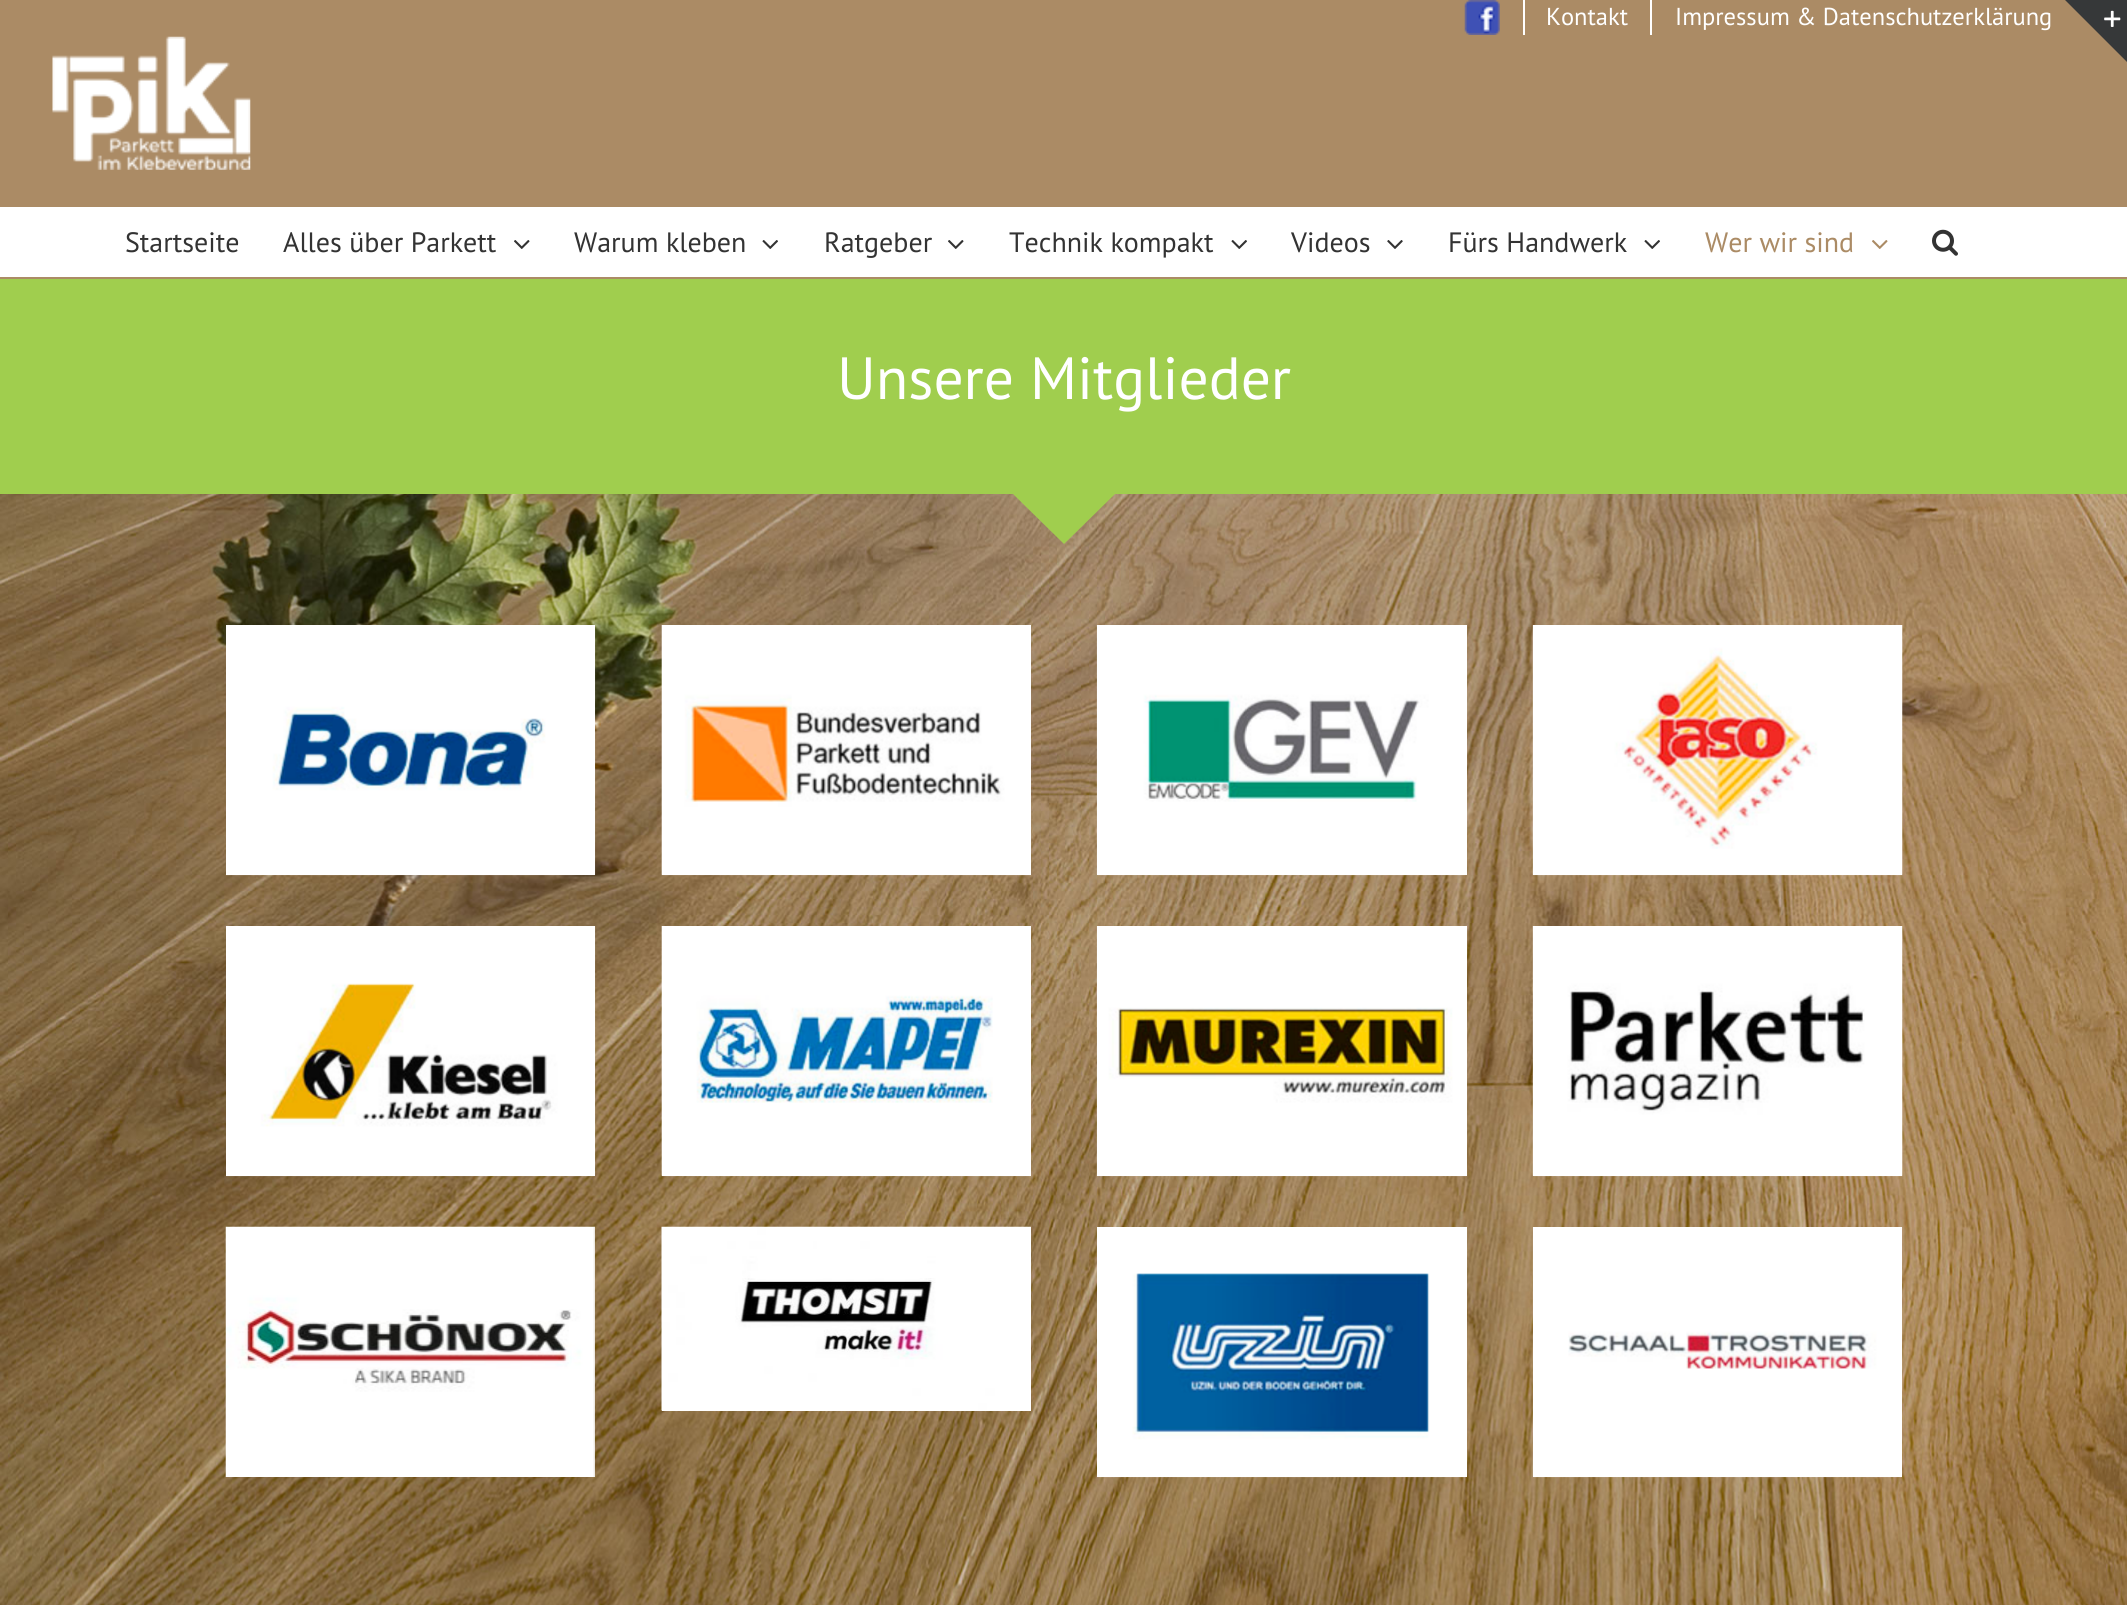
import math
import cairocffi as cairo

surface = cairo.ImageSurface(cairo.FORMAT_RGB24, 2127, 1605)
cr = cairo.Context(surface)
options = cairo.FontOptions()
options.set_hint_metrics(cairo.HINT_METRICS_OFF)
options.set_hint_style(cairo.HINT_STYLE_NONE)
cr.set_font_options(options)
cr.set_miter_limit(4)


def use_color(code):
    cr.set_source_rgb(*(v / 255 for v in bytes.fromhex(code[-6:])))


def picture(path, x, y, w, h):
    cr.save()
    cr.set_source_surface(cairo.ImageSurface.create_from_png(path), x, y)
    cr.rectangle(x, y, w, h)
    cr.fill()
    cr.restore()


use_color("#ffffff")
cr.paint()
use_color("#ab8b65")
cr.rectangle(0, 0, 2102, 37)
cr.fill()
picture("img1.png", 1464, 0, 36, 35)
use_color("#ffffff")
cr.rectangle(1523, 0, 2, 35)
cr.fill()
cr.select_font_face("PT Sans")
cr.set_font_size(24.5)
cr.move_to(1546, 25)
cr.show_text("Kontakt")
cr.rectangle(1650, 0, 2, 35)
cr.fill()
cr.move_to(1675, 25)
cr.show_text("Impressum & Datenschutzerklärung")
use_color("#ab8b65")
cr.rectangle(0, 37, 2127, 170)
cr.fill()
picture("img2.png", 52, 36, 199, 134)
cr.rectangle(0, 277, 2127, 2)
cr.fill()
cr.set_font_size(28)
use_color("#333333")
cr.move_to(125, 252)
cr.show_text("Startseite")
cr.move_to(283, 252)
cr.show_text("Alles über Parkett")
picture("img3.png", 514, 240, 16, 9)
cr.move_to(574, 252)
cr.show_text("Warum kleben")
picture("img4.png", 762, 240, 16, 9)
cr.move_to(824, 252)
cr.show_text("Ratgeber")
picture("img3.png", 948, 240, 16, 9)
cr.move_to(1009, 252)
cr.show_text("Technik kompakt")
picture("img4.png", 1231, 240, 16, 9)
cr.move_to(1291, 252)
cr.show_text("Videos")
picture("img5.png", 1387, 240, 16, 9)
cr.move_to(1448, 252)
cr.show_text("Fürs Handwerk")
picture("img4.png", 1644, 240, 16, 9)
use_color("#ab8b65")
cr.move_to(1705, 252)
cr.show_text("Wer wir sind")
picture("img6.png", 1872, 240, 16, 9)
picture("img7.png", 1932, 229, 26, 27)
use_color("#363839")
cr.new_path()
cr.move_to(2065, 0)
cr.line_to(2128, 0)
cr.line_to(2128, 63)
cr.close_path()
cr.fill()
picture("img8.png", 2104, 10, 17, 17)
use_color("#a0ce4e")
cr.rectangle(0, 279, 2127, 215)
cr.fill()
cr.set_font_size(59.5)
use_color("#ffffff")
cr.move_to(837, 399)
cr.show_text("Unsere Mitglieder")
picture("img9.png", 0, 494, 2127, 1111)
cr.rectangle(226, 625, 369, 250)
cr.fill()
picture("img10.png", 226, 625, 370, 251)
cr.rectangle(662, 625, 369, 250)
cr.fill()
picture("img11.png", 661, 625, 370, 251)
cr.rectangle(1097, 625, 370, 250)
cr.fill()
picture("img12.png", 1096, 625, 371, 251)
cr.rectangle(1533, 625, 369, 250)
cr.fill()
picture("img13.png", 1532, 625, 371, 251)
cr.rectangle(226, 926, 369, 250)
cr.fill()
picture("img14.png", 226, 926, 370, 251)
cr.rectangle(662, 926, 369, 250)
cr.fill()
picture("img15.png", 661, 926, 370, 251)
cr.rectangle(1097, 926, 370, 250)
cr.fill()
picture("img16.png", 1096, 926, 371, 251)
cr.rectangle(1533, 926, 369, 250)
cr.fill()
picture("img17.png", 1532, 926, 371, 251)
picture("img18.png", 225, 1226, 370, 251)
cr.rectangle(662, 1227, 369, 184)
cr.fill()
picture("img19.png", 661, 1226, 370, 185)
cr.rectangle(1097, 1227, 370, 250)
cr.fill()
picture("img20.png", 1097, 1273, 369, 205)
cr.rectangle(1533, 1227, 369, 250)
cr.fill()
picture("img21.png", 1532, 1227, 370, 251)
use_color("#a0ce4e")
cr.new_path()
cr.move_to(1013, 494)
cr.line_to(1115, 494)
cr.line_to(1064, 544)
cr.close_path()
cr.fill()
surface.write_to_png("result.png")
